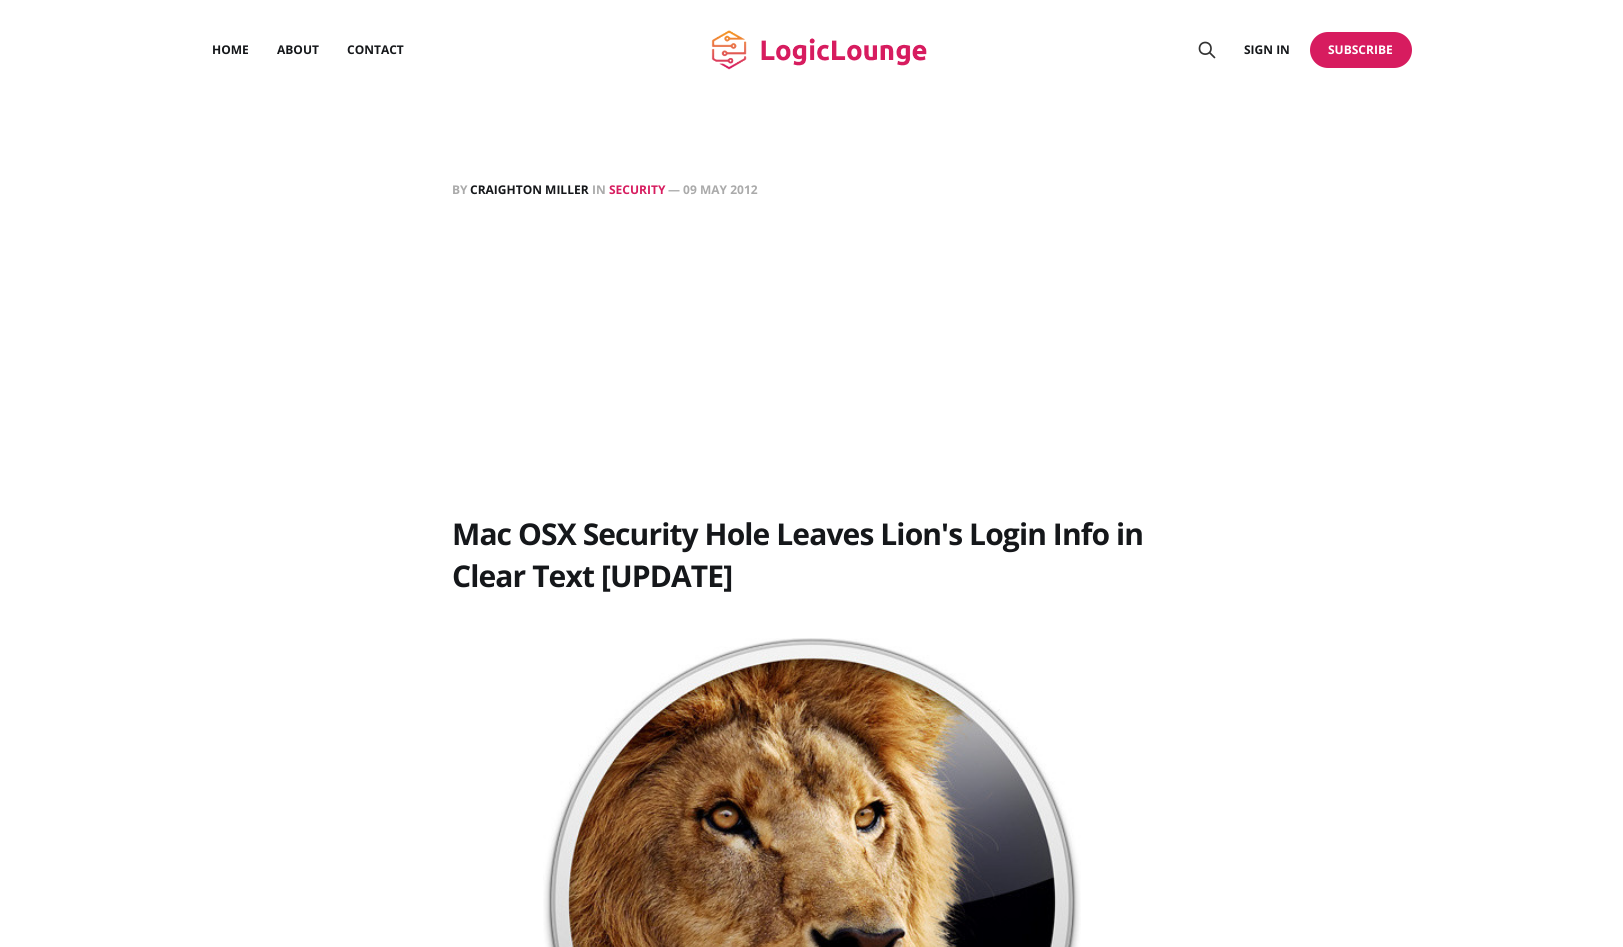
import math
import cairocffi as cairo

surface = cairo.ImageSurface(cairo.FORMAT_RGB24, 1623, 947)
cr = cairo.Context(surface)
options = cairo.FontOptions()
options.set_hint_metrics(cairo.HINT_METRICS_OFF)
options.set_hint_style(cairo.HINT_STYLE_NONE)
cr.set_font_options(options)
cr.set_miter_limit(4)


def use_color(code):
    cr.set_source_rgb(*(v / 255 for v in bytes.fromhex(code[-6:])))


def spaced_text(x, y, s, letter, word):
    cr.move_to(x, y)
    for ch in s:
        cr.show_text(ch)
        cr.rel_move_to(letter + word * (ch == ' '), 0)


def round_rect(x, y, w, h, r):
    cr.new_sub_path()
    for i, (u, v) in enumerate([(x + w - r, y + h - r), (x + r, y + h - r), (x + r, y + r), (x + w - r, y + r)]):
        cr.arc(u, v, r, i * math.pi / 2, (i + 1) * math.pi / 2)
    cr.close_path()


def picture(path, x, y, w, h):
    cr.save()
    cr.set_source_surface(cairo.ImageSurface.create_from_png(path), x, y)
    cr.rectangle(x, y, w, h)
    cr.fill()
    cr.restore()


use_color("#ffffff")
cr.paint()
cr.select_font_face("Open Sans", cairo.FONT_SLANT_NORMAL, cairo.FONT_WEIGHT_BOLD)
cr.set_font_size(12)
use_color("#15171a")
cr.move_to(212, 54)
cr.show_text("HOME")
cr.move_to(277, 54)
cr.show_text("ABOUT")
cr.move_to(347, 54)
cr.show_text("CONTACT")
picture("img1.png", 711, 30, 216, 40)
cr.new_path()
cr.move_to(1214.5, 57.5)
cr.line_to(1209.5, 52.5)
cr.move_to(1211, 48.5)
cr.curve_to(1211, 56, 1199.5, 56, 1199.5, 48.5)
cr.curve_to(1199.5, 40.5, 1211, 40.5, 1211, 48.5)
cr.close_path()
use_color("#333333")
cr.set_line_width(1.7)
cr.set_line_cap(cairo.LINE_CAP_ROUND)
cr.set_line_join(cairo.LINE_JOIN_ROUND)
cr.stroke()
use_color("#15171a")
cr.move_to(1244, 54)
cr.show_text("SIGN IN")
use_color("#d71c5f")
round_rect(1310, 32, 102, 36, 18)
cr.fill()
use_color("#ffffff")
cr.move_to(1328, 54)
cr.show_text("SUBSCRIBE")
use_color("#aaaaaa")
cr.move_to(452, 194)
cr.show_text("BY")
use_color("#15171a")
cr.move_to(470, 194)
cr.show_text("CRAIGHTON MILLER")
use_color("#aaaaaa")
cr.move_to(592, 194)
cr.show_text("IN")
use_color("#d71c5f")
cr.move_to(609, 194)
cr.show_text("SECURITY")
use_color("#aaaaaa")
cr.move_to(668, 194)
cr.show_text("— 09 MAY 2012")
cr.set_font_size(30)
use_color("#15171a")
spaced_text(452, 545, "Mac OSX Security Hole Leaves Lion's Login Info in", -0.9, 0)
spaced_text(452, 587, "Clear Text [UPDATE]", -0.9, 0)
picture("img2.png", 543, 638, 538, 309)
surface.write_to_png("result.png")
